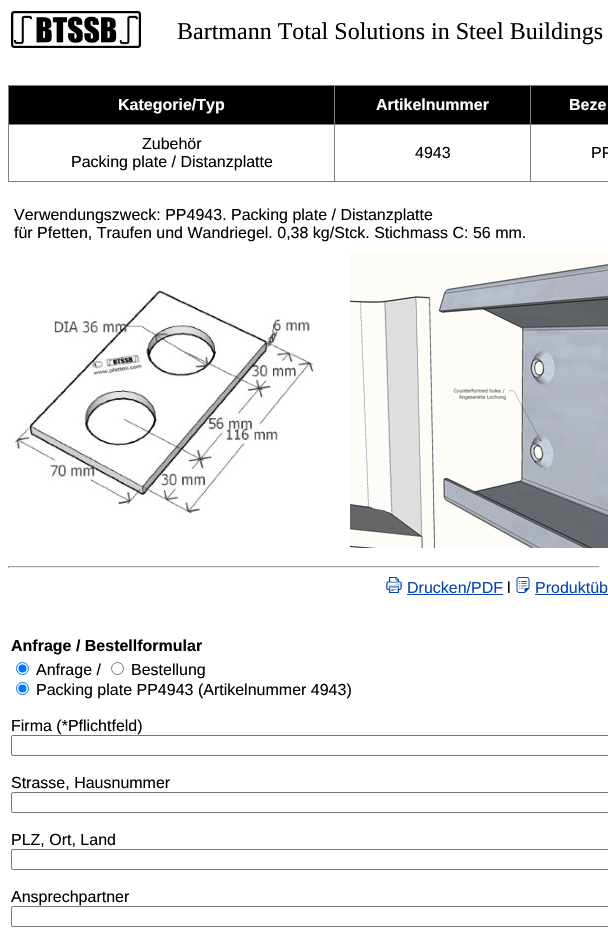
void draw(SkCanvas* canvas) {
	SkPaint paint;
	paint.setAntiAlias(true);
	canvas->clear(0xffffffff);
	canvas->drawImageRect(SkImages::DeferredFromEncodedData(SkData::MakeFromFileName("img1.png")), SkRect::MakeXYWH(11, 11, 130, 37), SkSamplingOptions());
	SkFont f1(fontMgr->matchFamilyStyle("Liberation Serif", SkFontStyle::Normal()), 24);
	f1.setSubpixel(true);
	paint.setColor(0xff000000);
	canvas->drawString("Bartmann Total Solutions in Steel Buildings", 177, 39, f1, paint);
	canvas->drawRect(SkRect::MakeXYWH(9, 86, 325, 38), paint);
	paint.setColor(0xff808080);
	canvas->drawRect(SkRect::MakeXYWH(530, 85, 78, 1), paint);
	canvas->drawRect(SkRect::MakeXYWH(530, 124, 78, 1), paint);
	canvas->drawRect(SkRect::MakeXYWH(530, 181, 78, 1), paint);
	canvas->drawRect(SkRect::MakeXYWH(530, 124, 1, 58), paint);
	canvas->drawRect(SkRect::MakeXYWH(334, 124, 197, 1), paint);
	canvas->drawRect(SkRect::MakeXYWH(530, 85, 1, 40), paint);
	canvas->drawRect(SkRect::MakeXYWH(334, 85, 197, 1), paint);
	canvas->drawRect(SkRect::MakeXYWH(334, 181, 197, 1), paint);
	canvas->drawRect(SkRect::MakeXYWH(334, 124, 1, 58), paint);
	canvas->drawRect(SkRect::MakeXYWH(8, 124, 327, 1), paint);
	canvas->drawRect(SkRect::MakeXYWH(334, 85, 1, 40), paint);
	canvas->drawRect(SkRect::MakeXYWH(8, 85, 327, 1), paint);
	canvas->drawRect(SkRect::MakeXYWH(8, 181, 327, 1), paint);
	canvas->drawRect(SkRect::MakeXYWH(8, 124, 1, 58), paint);
	canvas->drawRect(SkRect::MakeXYWH(8, 85, 1, 40), paint);
	SkFont f2(fontMgr->matchFamilyStyle("Liberation Sans", SkFontStyle::Bold()), 16);
	f2.setSubpixel(true);
	paint.setColor(0xffffffff);
	canvas->drawString("Kategorie/Typ", 118, 110, f2, paint);
	paint.setColor(0xff000000);
	canvas->drawRect(SkRect::MakeXYWH(335, 86, 195, 38), paint);
	paint.setColor(0xffffffff);
	canvas->drawString("Artikelnummer", 376, 110, f2, paint);
	paint.setColor(0xff000000);
	canvas->drawRect(SkRect::MakeXYWH(531, 86, 77, 38), paint);
	paint.setColor(0xffffffff);
	canvas->drawString("Beze", 569, 110, f2, paint);
	SkFont f3(fontMgr->matchFamilyStyle("Liberation Sans", SkFontStyle::Normal()), 16);
	f3.setSubpixel(true);
	paint.setColor(0xff000000);
	canvas->drawString("Zubehör", 142, 149, f3, paint);
	canvas->drawString("Packing plate / Distanzplatte", 71, 167, f3, paint);
	canvas->drawString("4943", 415, 158, f3, paint);
	canvas->drawString("PP", 591, 158, f3, paint);
	canvas->drawString("Verwendungszweck: PP4943. Packing plate / Distanzplatte", 14, 220, f3, paint);
	canvas->drawString("für Pfetten, Traufen und Wandriegel. 0,38 kg/Stck. Stichmass C: 56 mm.", 14, 238, f3, paint);
	canvas->drawImageRect(SkImages::DeferredFromEncodedData(SkData::MakeFromFileName("img2.png")), SkRect::MakeXYWH(14, 289, 300, 225), SkSamplingOptions());
	canvas->drawImageRect(SkImages::DeferredFromEncodedData(SkData::MakeFromFileName("img3.png")), SkRect::MakeXYWH(350, 250, 258, 298), SkSamplingOptions());
	paint.setColor(0xff9f9f9f);
	canvas->drawRect(SkRect::MakeXYWH(8, 566, 592, 1), paint);
	paint.setColor(0xffeeeeee);
	canvas->drawRect(SkRect::MakeXYWH(599, 566, 1, 2), paint);
	canvas->drawRect(SkRect::MakeXYWH(8, 567, 592, 1), paint);
	paint.setColor(0xff9f9f9f);
	canvas->drawRect(SkRect::MakeXYWH(8, 566, 1, 2), paint);
	canvas->drawImageRect(SkImages::DeferredFromEncodedData(SkData::MakeFromFileName("img4.png")), SkRect::MakeXYWH(386, 577, 16, 16), SkSamplingOptions());
	paint.setColor(0xff0645ad);
	canvas->drawString("Drucken/PDF", 407, 593, f3, paint);
	canvas->drawRect(SkRect::MakeXYWH(407, 594, 96, 1), paint);
	paint.setColor(0xff000000);
	canvas->drawString("l", 507, 593, f3, paint);
	canvas->drawImageRect(SkImages::DeferredFromEncodedData(SkData::MakeFromFileName("img5.png")), SkRect::MakeXYWH(516, 577, 14, 16), SkSamplingOptions());
	paint.setColor(0xff0645ad);
	canvas->drawString("Produktüb", 535, 593, f3, paint);
	canvas->drawRect(SkRect::MakeXYWH(535, 594, 73, 1), paint);
	paint.setColor(0xff000000);
	canvas->drawString("Anfrage / Bestellformular", 11, 651, f2, paint);
	paint.setStroke(true);
	paint.setStrokeWidth(1);
	paint.setColor(0xff0075ff);
	canvas->drawCircle(22.5, 668.5, 6, paint);
	paint.setStroke(false);
	canvas->drawCircle(22.5, 668.5, 4, paint);
	paint.setColor(0xff000000);
	canvas->drawString("Anfrage /", 36, 675, f3, paint);
	paint.setStroke(true);
	paint.setColor(0xff767676);
	canvas->drawCircle(117.5, 668.5, 6, paint);
	paint.setStroke(false);
	paint.setColor(0xff000000);
	canvas->drawString("Bestellung", 131, 675, f3, paint);
	paint.setStroke(true);
	paint.setColor(0xff0075ff);
	canvas->drawCircle(22.5, 688.5, 6, paint);
	paint.setStroke(false);
	canvas->drawCircle(22.5, 688.5, 4, paint);
	paint.setColor(0xff000000);
	canvas->drawString("Packing plate PP4943 (Artikelnummer 4943)", 36, 695, f3, paint);
	canvas->drawString("Firma (*Pflichtfeld)", 11, 731, f3, paint);
	paint.setStroke(true);
	paint.setColor(0xff767676);
	canvas->drawRoundRect(SkRect::MakeXYWH(11.5, 735.5, 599, 20), 1.5, 1.5, paint);
	paint.setStroke(false);
	paint.setColor(0xff000000);
	canvas->drawString("Strasse, Hausnummer", 11, 788, f3, paint);
	paint.setStroke(true);
	paint.setColor(0xff767676);
	canvas->drawRoundRect(SkRect::MakeXYWH(11.5, 792.5, 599, 20), 1.5, 1.5, paint);
	paint.setStroke(false);
	paint.setColor(0xff000000);
	canvas->drawString("PLZ, Ort, Land", 11, 845, f3, paint);
	paint.setStroke(true);
	paint.setColor(0xff767676);
	canvas->drawRoundRect(SkRect::MakeXYWH(11.5, 849.5, 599, 20), 1.5, 1.5, paint);
	paint.setStroke(false);
	paint.setColor(0xff000000);
	canvas->drawString("Ansprechpartner", 11, 902, f3, paint);
	paint.setStroke(true);
	paint.setColor(0xff767676);
	canvas->drawRoundRect(SkRect::MakeXYWH(11.5, 906.5, 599, 20), 1.5, 1.5, paint);
}
